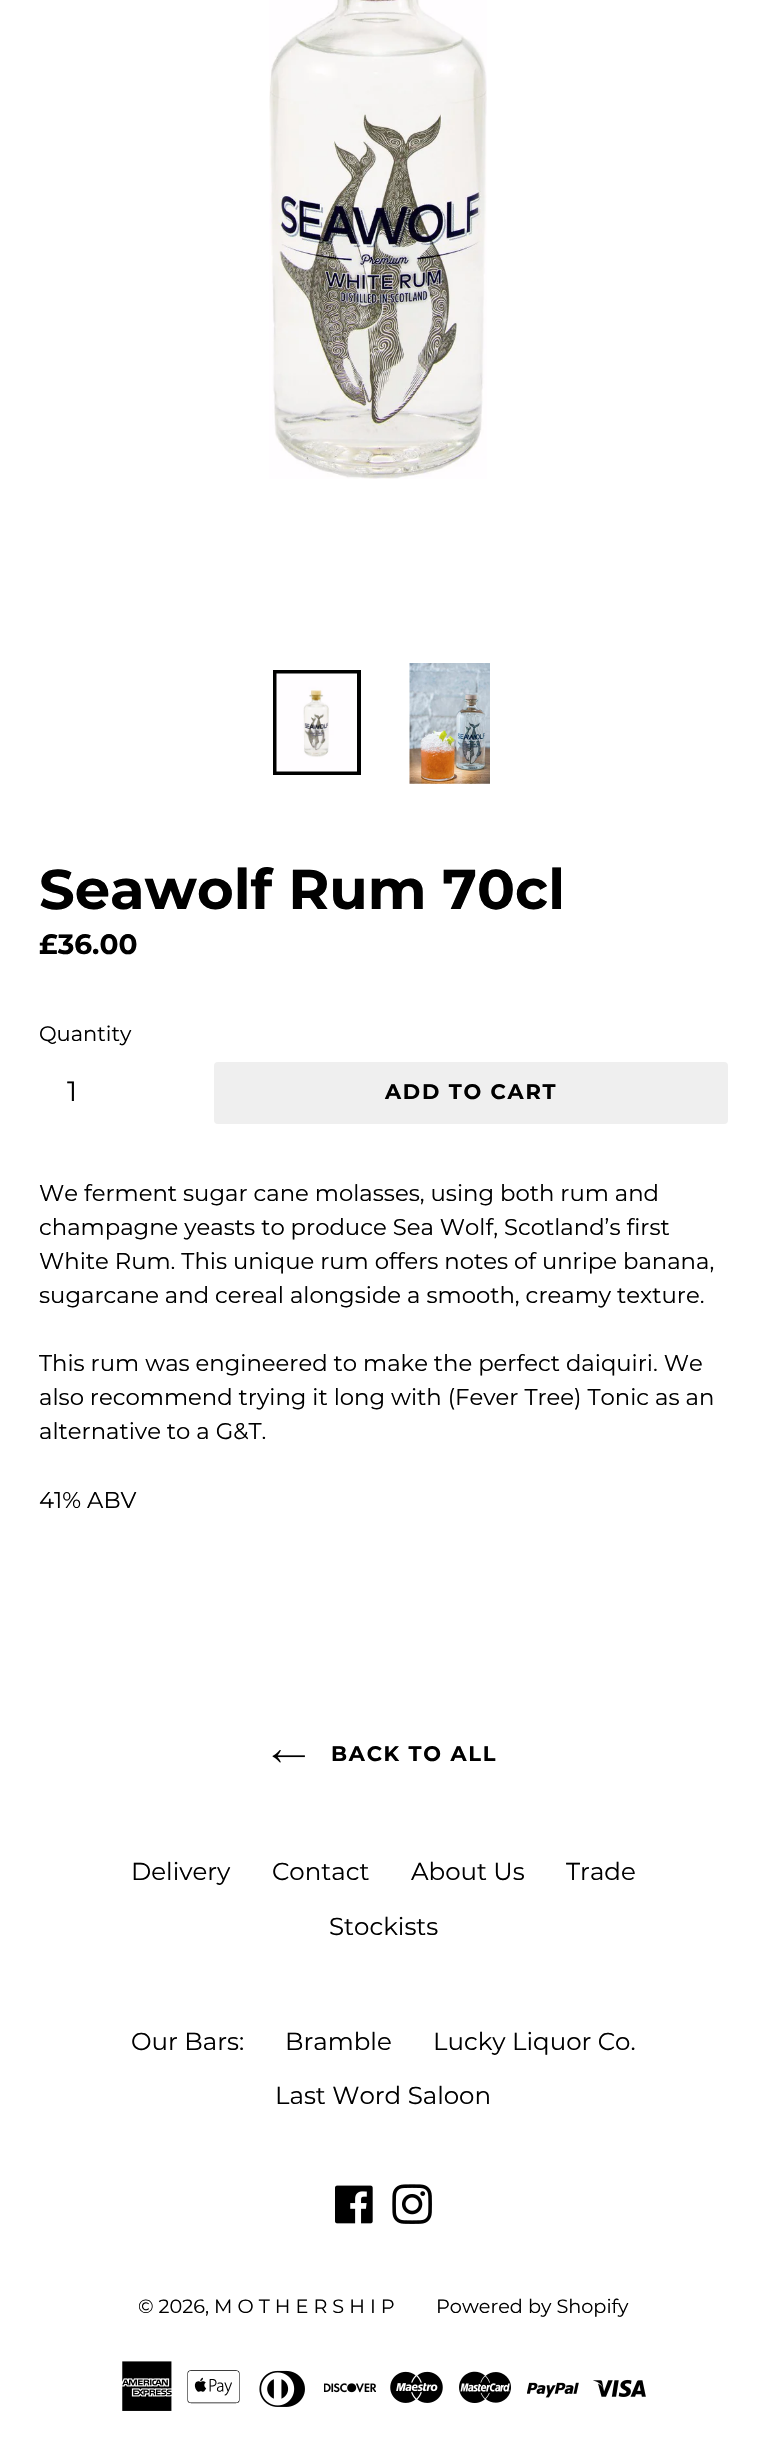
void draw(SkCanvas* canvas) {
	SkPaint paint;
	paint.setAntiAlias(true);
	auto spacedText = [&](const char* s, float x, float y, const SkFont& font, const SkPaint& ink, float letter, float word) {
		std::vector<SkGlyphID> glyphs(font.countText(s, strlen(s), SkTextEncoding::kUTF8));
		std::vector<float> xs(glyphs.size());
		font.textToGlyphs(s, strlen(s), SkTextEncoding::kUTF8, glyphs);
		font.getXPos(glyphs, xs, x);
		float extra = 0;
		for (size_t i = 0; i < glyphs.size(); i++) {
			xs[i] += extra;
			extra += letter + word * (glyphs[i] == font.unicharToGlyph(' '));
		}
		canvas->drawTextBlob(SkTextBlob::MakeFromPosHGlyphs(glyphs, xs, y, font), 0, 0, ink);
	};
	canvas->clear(0xffffffff);
	canvas->drawImageRect(SkImages::DeferredFromEncodedData(SkData::MakeFromFileName("img1.png")), SkRect::MakeXYWH(269, 0, 218, 479), SkSamplingOptions());
	paint.setStroke(true);
	paint.setStrokeWidth(4);
	paint.setColor(0xff000000);
	canvas->drawRect(SkRect::MakeXYWH(275, 672, 84, 101), paint);
	canvas->drawImageRect(SkImages::DeferredFromEncodedData(SkData::MakeFromFileName("img2.png")), SkRect::MakeXYWH(276, 673, 81, 99), SkSamplingOptions());
	canvas->drawImageRect(SkImages::DeferredFromEncodedData(SkData::MakeFromFileName("img3.png")), SkRect::MakeXYWH(409, 663, 81, 121), SkSamplingOptions());
	SkFont f1(fontMgr->matchFamilyStyle("Montserrat", SkFontStyle::Bold()), 56);
	f1.setSubpixel(true);
	paint.setStroke(false);
	canvas->drawString("Seawolf Rum 70cl", 39, 909, f1, paint);
	SkFont f2(fontMgr->matchFamilyStyle("Montserrat", SkFontStyle::Bold()), 28);
	f2.setSubpixel(true);
	canvas->drawString("£36.00", 39, 954, f2, paint);
	SkFont f3(fontMgr->matchFamilyStyle("Montserrat", SkFontStyle::Normal()), 21);
	f3.setSubpixel(true);
	canvas->drawString("Quantity", 39, 1041, f3, paint);
	SkFont f4(fontMgr->matchFamilyStyle("Montserrat", SkFontStyle::Normal()), 28);
	f4.setSubpixel(true);
	canvas->drawString("1", 67, 1101, f4, paint);
	paint.setColor(0xffefefef);
	canvas->drawRoundRect(SkRect::MakeXYWH(214, 1062, 514, 62), 4, 4, paint);
	SkFont f5(fontMgr->matchFamilyStyle("Montserrat", SkFontStyle::Bold()), 21);
	f5.setSubpixel(true);
	paint.setColor(0xff000000);
	spacedText("ADD TO CART", 385, 1099, f5, paint, 1.75, 0);
	SkFont f6(fontMgr->matchFamilyStyle("Montserrat", SkFontStyle::Normal()), 22.75);
	f6.setSubpixel(true);
	canvas->drawString("We ferment sugar cane molasses, using both rum and", 39, 1201, f6, paint);
	canvas->drawString("champagne yeasts to produce Sea Wolf, Scotland’s first", 39, 1235, f6, paint);
	canvas->drawString("White Rum. This unique rum offers notes of unripe banana,", 39, 1269, f6, paint);
	canvas->drawString("sugarcane and cereal alongside a smooth, creamy texture.", 39, 1303, f6, paint);
	canvas->drawString("This rum was engineered to make the perfect daiquiri. We", 39, 1371, f6, paint);
	canvas->drawString("also recommend trying it long with (Fever Tree) Tonic as an", 39, 1405, f6, paint);
	canvas->drawString("alternative to a G&T.", 39, 1439, f6, paint);
	canvas->drawString("41% ABV", 39, 1508, f6, paint);
	canvas->drawImageRect(SkImages::DeferredFromEncodedData(SkData::MakeFromFileName("img4.png")), SkRect::MakeXYWH(272, 1750, 33, 13), SkSamplingOptions());
	spacedText("BACK TO ALL", 331, 1761, f5, paint, 1.75, 0);
	SkFont f7(fontMgr->matchFamilyStyle("Montserrat", SkFontStyle::Normal()), 24.5);
	f7.setSubpixel(true);
	canvas->drawString("Delivery", 131, 1880, f7, paint);
	canvas->drawString("Contact", 272, 1880, f7, paint);
	canvas->drawString("About Us", 411, 1880, f7, paint);
	canvas->drawString("Trade", 566, 1880, f7, paint);
	canvas->drawString("Stockists", 329, 1935, f7, paint);
	canvas->drawString("Our Bars:", 131, 2050, f7, paint);
	canvas->drawString("Bramble", 285, 2050, f7, paint);
	canvas->drawString("Lucky Liquor Co.", 433, 2050, f7, paint);
	canvas->drawString("Last Word Saloon", 275, 2104, f7, paint);
	canvas->drawImageRect(SkImages::DeferredFromEncodedData(SkData::MakeFromFileName("img5.png")), SkRect::MakeXYWH(335, 2185, 38, 39), SkSamplingOptions());
	canvas->drawImageRect(SkImages::DeferredFromEncodedData(SkData::MakeFromFileName("img6.png")), SkRect::MakeXYWH(392, 2184, 40, 40), SkSamplingOptions());
	SkFont f8(fontMgr->matchFamilyStyle("Montserrat", SkFontStyle::Normal()), 19.25);
	f8.setSubpixel(true);
	canvas->drawString("© 2026, M O T H E R S H I P", 138, 2313, f8, paint);
	canvas->drawString("Powered by Shopify", 436, 2313, f8, paint);
	canvas->drawImageRect(SkImages::DeferredFromEncodedData(SkData::MakeFromFileName("img7.png")), SkRect::MakeXYWH(122, 2361, 50, 50), SkSamplingOptions());
	canvas->drawImageRect(SkImages::DeferredFromEncodedData(SkData::MakeFromFileName("img8.png")), SkRect::MakeXYWH(187, 2370, 53, 34), SkSamplingOptions());
	canvas->drawImageRect(SkImages::DeferredFromEncodedData(SkData::MakeFromFileName("img9.png")), SkRect::MakeXYWH(259, 2370, 46, 37), SkSamplingOptions());
	canvas->drawImageRect(SkImages::DeferredFromEncodedData(SkData::MakeFromFileName("img10.png")), SkRect::MakeXYWH(324, 2383, 52, 10), SkSamplingOptions());
	canvas->drawImageRect(SkImages::DeferredFromEncodedData(SkData::MakeFromFileName("img11.png")), SkRect::MakeXYWH(390, 2371, 53, 32), SkSamplingOptions());
	canvas->drawImageRect(SkImages::DeferredFromEncodedData(SkData::MakeFromFileName("img12.png")), SkRect::MakeXYWH(459, 2371, 52, 32), SkSamplingOptions());
	canvas->drawImageRect(SkImages::DeferredFromEncodedData(SkData::MakeFromFileName("img13.png")), SkRect::MakeXYWH(527, 2382, 52, 16), SkSamplingOptions());
	canvas->drawImageRect(SkImages::DeferredFromEncodedData(SkData::MakeFromFileName("img14.png")), SkRect::MakeXYWH(593, 2379, 53, 18), SkSamplingOptions());
}
